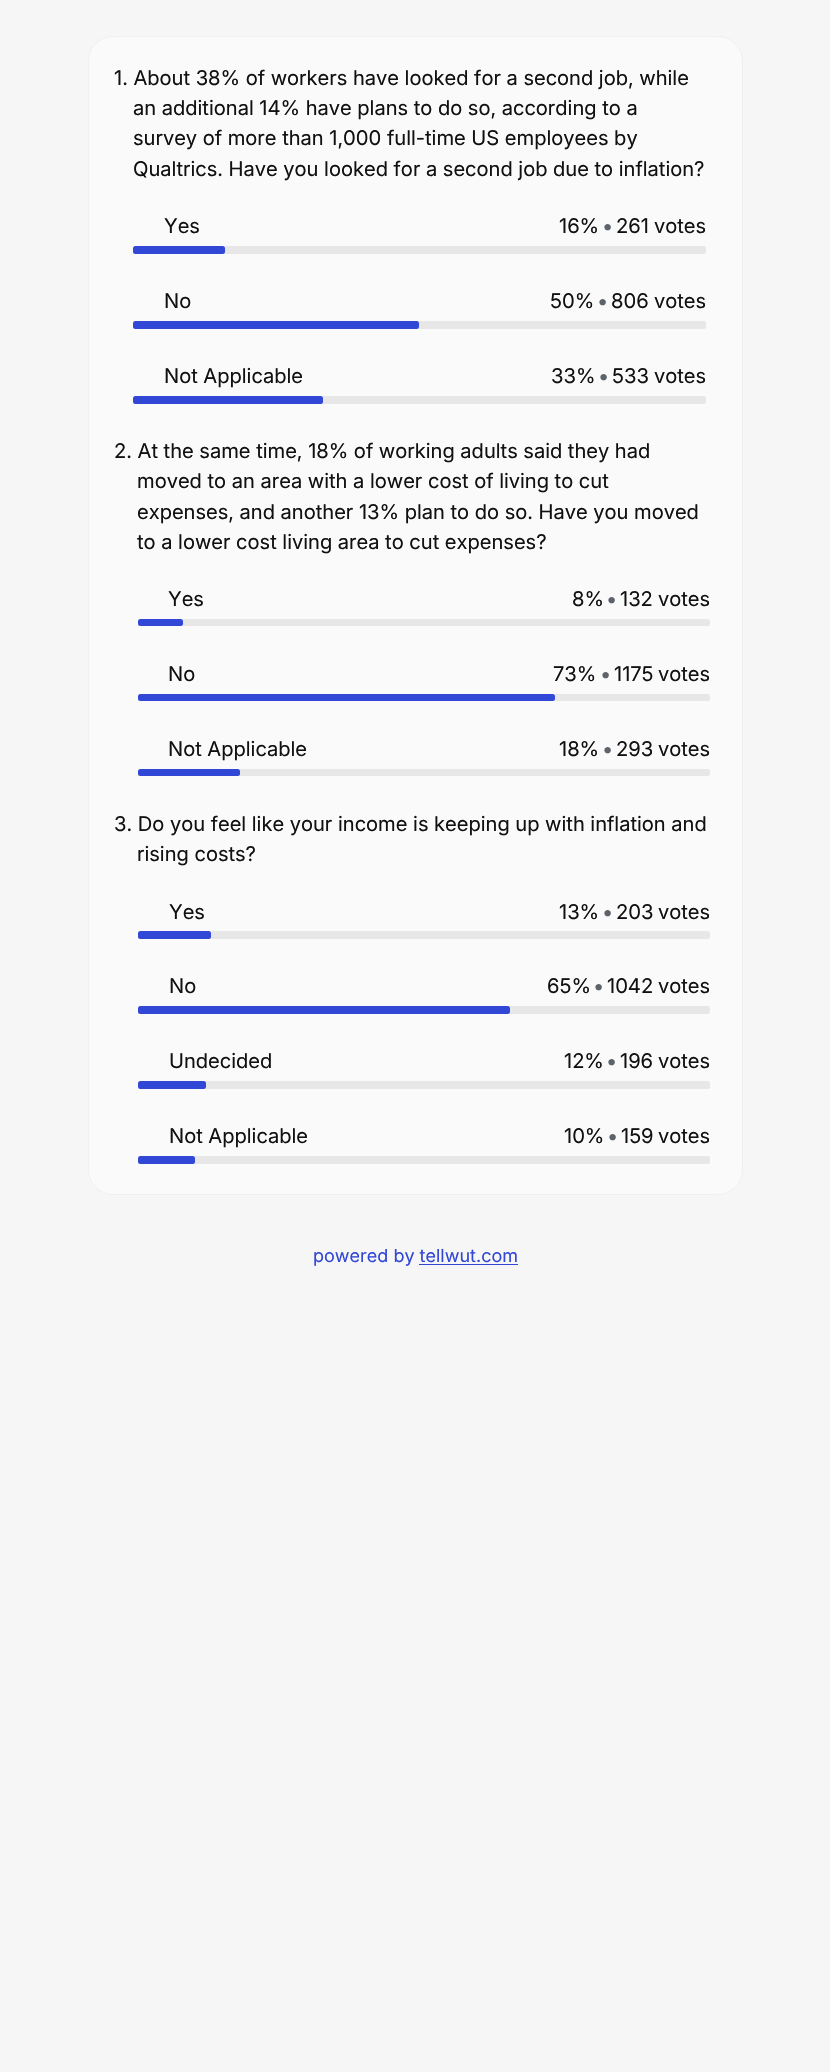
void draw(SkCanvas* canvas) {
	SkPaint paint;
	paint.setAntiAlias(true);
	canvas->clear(0xfff6f6f6);
	paint.setColor(0xfffafafa);
	canvas->drawRoundRect(SkRect::MakeXYWH(88.5, 36.5, 654, 1158), 24.5, 24.5, paint);
	paint.setStroke(true);
	paint.setStrokeWidth(1);
	paint.setColor(0xfff0f0f0);
	canvas->drawRoundRect(SkRect::MakeXYWH(88.5, 36.5, 654, 1158), 24.5, 24.5, paint);
	SkFont f1(fontMgr->matchFamilyStyle("Inter", SkFontStyle::Normal()), 20.25);
	f1.setSubpixel(true);
	paint.setStroke(false);
	paint.setColor(0xff111111);
	canvas->drawString("1. About 38% of workers have looked for a second job, while", 114, 85, f1, paint);
	canvas->drawString("an additional 14% have plans to do so, according to a", 133, 115, f1, paint);
	canvas->drawString("survey of more than 1,000 full-time US employees by", 133, 145, f1, paint);
	canvas->drawString("Qualtrics. Have you looked for a second job due to inflation?", 133, 176, f1, paint);
	canvas->drawString("Yes", 164, 233, f1, paint);
	canvas->drawString("16%", 559, 233, f1, paint);
	paint.setColor(0xff5d636a);
	canvas->drawString("•", 602, 233, f1, paint);
	paint.setColor(0xff111111);
	canvas->drawString("261", 616, 233, f1, paint);
	canvas->drawString("votes", 654, 233, f1, paint);
	paint.setColor(0xfff0f0f0);
	canvas->drawRoundRect(SkRect::MakeXYWH(133, 246, 573, 8), 2.5, 2.5, paint);
	paint.setColor(0x147d7d7d);
	canvas->drawRoundRect(SkRect::MakeXYWH(133, 246, 573, 8), 2.5, 2.5, paint);
	paint.setColor(0xff3147d5);
	canvas->drawRoundRect(SkRect::MakeXYWH(133, 246, 92, 8), 2.5, 2.5, paint);
	paint.setColor(0xff111111);
	canvas->drawString("No", 164, 308, f1, paint);
	canvas->drawString("50%", 550, 308, f1, paint);
	paint.setColor(0xff5d636a);
	canvas->drawString("•", 597, 308, f1, paint);
	paint.setColor(0xff111111);
	canvas->drawString("806", 611, 308, f1, paint);
	canvas->drawString("votes", 654, 308, f1, paint);
	paint.setColor(0xfff0f0f0);
	canvas->drawRoundRect(SkRect::MakeXYWH(133, 321, 573, 8), 2.5, 2.5, paint);
	paint.setColor(0x147d7d7d);
	canvas->drawRoundRect(SkRect::MakeXYWH(133, 321, 573, 8), 2.5, 2.5, paint);
	paint.setColor(0xff3147d5);
	canvas->drawRoundRect(SkRect::MakeXYWH(133, 321, 286, 8), 2.5, 2.5, paint);
	paint.setColor(0xff111111);
	canvas->drawString("Not Applicable", 164, 383, f1, paint);
	canvas->drawString("33%", 551, 383, f1, paint);
	paint.setColor(0xff5d636a);
	canvas->drawString("•", 598, 383, f1, paint);
	paint.setColor(0xff111111);
	canvas->drawString("533", 612, 383, f1, paint);
	canvas->drawString("votes", 654, 383, f1, paint);
	paint.setColor(0xfff0f0f0);
	canvas->drawRoundRect(SkRect::MakeXYWH(133, 396, 573, 8), 2.5, 2.5, paint);
	paint.setColor(0x147d7d7d);
	canvas->drawRoundRect(SkRect::MakeXYWH(133, 396, 573, 8), 2.5, 2.5, paint);
	paint.setColor(0xff3147d5);
	canvas->drawRoundRect(SkRect::MakeXYWH(133, 396, 190, 8), 2.5, 2.5, paint);
	paint.setColor(0xff111111);
	canvas->drawString("2. At the same time, 18% of working adults said they had", 114, 458, f1, paint);
	canvas->drawString("moved to an area with a lower cost of living to cut", 137, 488, f1, paint);
	canvas->drawString("expenses, and another 13% plan to do so. Have you moved", 137, 519, f1, paint);
	canvas->drawString("to a lower cost living area to cut expenses?", 137, 549, f1, paint);
	canvas->drawString("Yes", 168, 606, f1, paint);
	canvas->drawString("8%", 572, 606, f1, paint);
	paint.setColor(0xff5d636a);
	canvas->drawString("•", 606, 606, f1, paint);
	paint.setColor(0xff111111);
	canvas->drawString("132", 620, 606, f1, paint);
	canvas->drawString("votes", 658, 606, f1, paint);
	paint.setColor(0xfff0f0f0);
	canvas->drawRoundRect(SkRect::MakeXYWH(138, 619, 572, 7), 2.5, 2.5, paint);
	paint.setColor(0x147d7d7d);
	canvas->drawRoundRect(SkRect::MakeXYWH(138, 619, 572, 7), 2.5, 2.5, paint);
	paint.setColor(0xff3147d5);
	canvas->drawRoundRect(SkRect::MakeXYWH(138, 619, 45, 7), 2.5, 2.5, paint);
	paint.setColor(0xff111111);
	canvas->drawString("No", 168, 681, f1, paint);
	canvas->drawString("73%", 553, 681, f1, paint);
	paint.setColor(0xff5d636a);
	canvas->drawString("•", 600, 681, f1, paint);
	paint.setColor(0xff111111);
	canvas->drawString("1175", 614, 681, f1, paint);
	canvas->drawString("votes", 658, 681, f1, paint);
	paint.setColor(0xfff0f0f0);
	canvas->drawRoundRect(SkRect::MakeXYWH(138, 694, 572, 7), 2.5, 2.5, paint);
	paint.setColor(0x147d7d7d);
	canvas->drawRoundRect(SkRect::MakeXYWH(138, 694, 572, 7), 2.5, 2.5, paint);
	paint.setColor(0xff3147d5);
	canvas->drawRoundRect(SkRect::MakeXYWH(138, 694, 417, 7), 2.5, 2.5, paint);
	paint.setColor(0xff111111);
	canvas->drawString("Not Applicable", 168, 756, f1, paint);
	canvas->drawString("18%", 559, 756, f1, paint);
	paint.setColor(0xff5d636a);
	canvas->drawString("•", 602, 756, f1, paint);
	paint.setColor(0xff111111);
	canvas->drawString("293", 616, 756, f1, paint);
	canvas->drawString("votes", 658, 756, f1, paint);
	paint.setColor(0xfff0f0f0);
	canvas->drawRoundRect(SkRect::MakeXYWH(138, 769, 572, 7), 2.5, 2.5, paint);
	paint.setColor(0x147d7d7d);
	canvas->drawRoundRect(SkRect::MakeXYWH(138, 769, 572, 7), 2.5, 2.5, paint);
	paint.setColor(0xff3147d5);
	canvas->drawRoundRect(SkRect::MakeXYWH(138, 769, 102, 7), 2.5, 2.5, paint);
	paint.setColor(0xff111111);
	canvas->drawString("3. Do you feel like your income is keeping up with inflation and", 114, 831, f1, paint);
	canvas->drawString("rising costs?", 137, 861, f1, paint);
	canvas->drawString("Yes", 169, 919, f1, paint);
	canvas->drawString("13%", 559, 919, f1, paint);
	paint.setColor(0xff5d636a);
	canvas->drawString("•", 602, 919, f1, paint);
	paint.setColor(0xff111111);
	canvas->drawString("203", 616, 919, f1, paint);
	canvas->drawString("votes", 658, 919, f1, paint);
	paint.setColor(0xfff0f0f0);
	canvas->drawRoundRect(SkRect::MakeXYWH(138, 931, 572, 8), 2.5, 2.5, paint);
	paint.setColor(0x147d7d7d);
	canvas->drawRoundRect(SkRect::MakeXYWH(138, 931, 572, 8), 2.5, 2.5, paint);
	paint.setColor(0xff3147d5);
	canvas->drawRoundRect(SkRect::MakeXYWH(138, 931, 73, 8), 2.5, 2.5, paint);
	paint.setColor(0xff111111);
	canvas->drawString("No", 169, 993, f1, paint);
	canvas->drawString("65%", 547, 993, f1, paint);
	paint.setColor(0xff5d636a);
	canvas->drawString("•", 593, 993, f1, paint);
	paint.setColor(0xff111111);
	canvas->drawString("1042", 607, 993, f1, paint);
	canvas->drawString("votes", 658, 993, f1, paint);
	paint.setColor(0xfff0f0f0);
	canvas->drawRoundRect(SkRect::MakeXYWH(138, 1006, 572, 8), 2.5, 2.5, paint);
	paint.setColor(0x147d7d7d);
	canvas->drawRoundRect(SkRect::MakeXYWH(138, 1006, 572, 8), 2.5, 2.5, paint);
	paint.setColor(0xff3147d5);
	canvas->drawRoundRect(SkRect::MakeXYWH(138, 1006, 372, 8), 2.5, 2.5, paint);
	paint.setColor(0xff111111);
	canvas->drawString("Undecided", 169, 1068, f1, paint);
	canvas->drawString("12%", 564, 1068, f1, paint);
	paint.setColor(0xff5d636a);
	canvas->drawString("•", 606, 1068, f1, paint);
	paint.setColor(0xff111111);
	canvas->drawString("196", 620, 1068, f1, paint);
	canvas->drawString("votes", 658, 1068, f1, paint);
	paint.setColor(0xfff0f0f0);
	canvas->drawRoundRect(SkRect::MakeXYWH(138, 1081, 572, 8), 2.5, 2.5, paint);
	paint.setColor(0x147d7d7d);
	canvas->drawRoundRect(SkRect::MakeXYWH(138, 1081, 572, 8), 2.5, 2.5, paint);
	paint.setColor(0xff3147d5);
	canvas->drawRoundRect(SkRect::MakeXYWH(138, 1081, 68, 8), 2.5, 2.5, paint);
	paint.setColor(0xff111111);
	canvas->drawString("Not Applicable", 169, 1143, f1, paint);
	canvas->drawString("10%", 564, 1143, f1, paint);
	paint.setColor(0xff5d636a);
	canvas->drawString("•", 607, 1143, f1, paint);
	paint.setColor(0xff111111);
	canvas->drawString("159", 621, 1143, f1, paint);
	canvas->drawString("votes", 658, 1143, f1, paint);
	paint.setColor(0xfff0f0f0);
	canvas->drawRoundRect(SkRect::MakeXYWH(138, 1156, 572, 8), 2.5, 2.5, paint);
	paint.setColor(0x147d7d7d);
	canvas->drawRoundRect(SkRect::MakeXYWH(138, 1156, 572, 8), 2.5, 2.5, paint);
	paint.setColor(0xff3147d5);
	canvas->drawRoundRect(SkRect::MakeXYWH(138, 1156, 57, 8), 2.5, 2.5, paint);
	SkFont f2(fontMgr->matchFamilyStyle("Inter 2", SkFontStyle::Normal()), 18);
	f2.setSubpixel(true);
	canvas->drawString("powered by tellwut.com", 313, 1262, f2, paint);
	canvas->drawRect(SkRect::MakeXYWH(419, 1264, 99, 1), paint);
}
